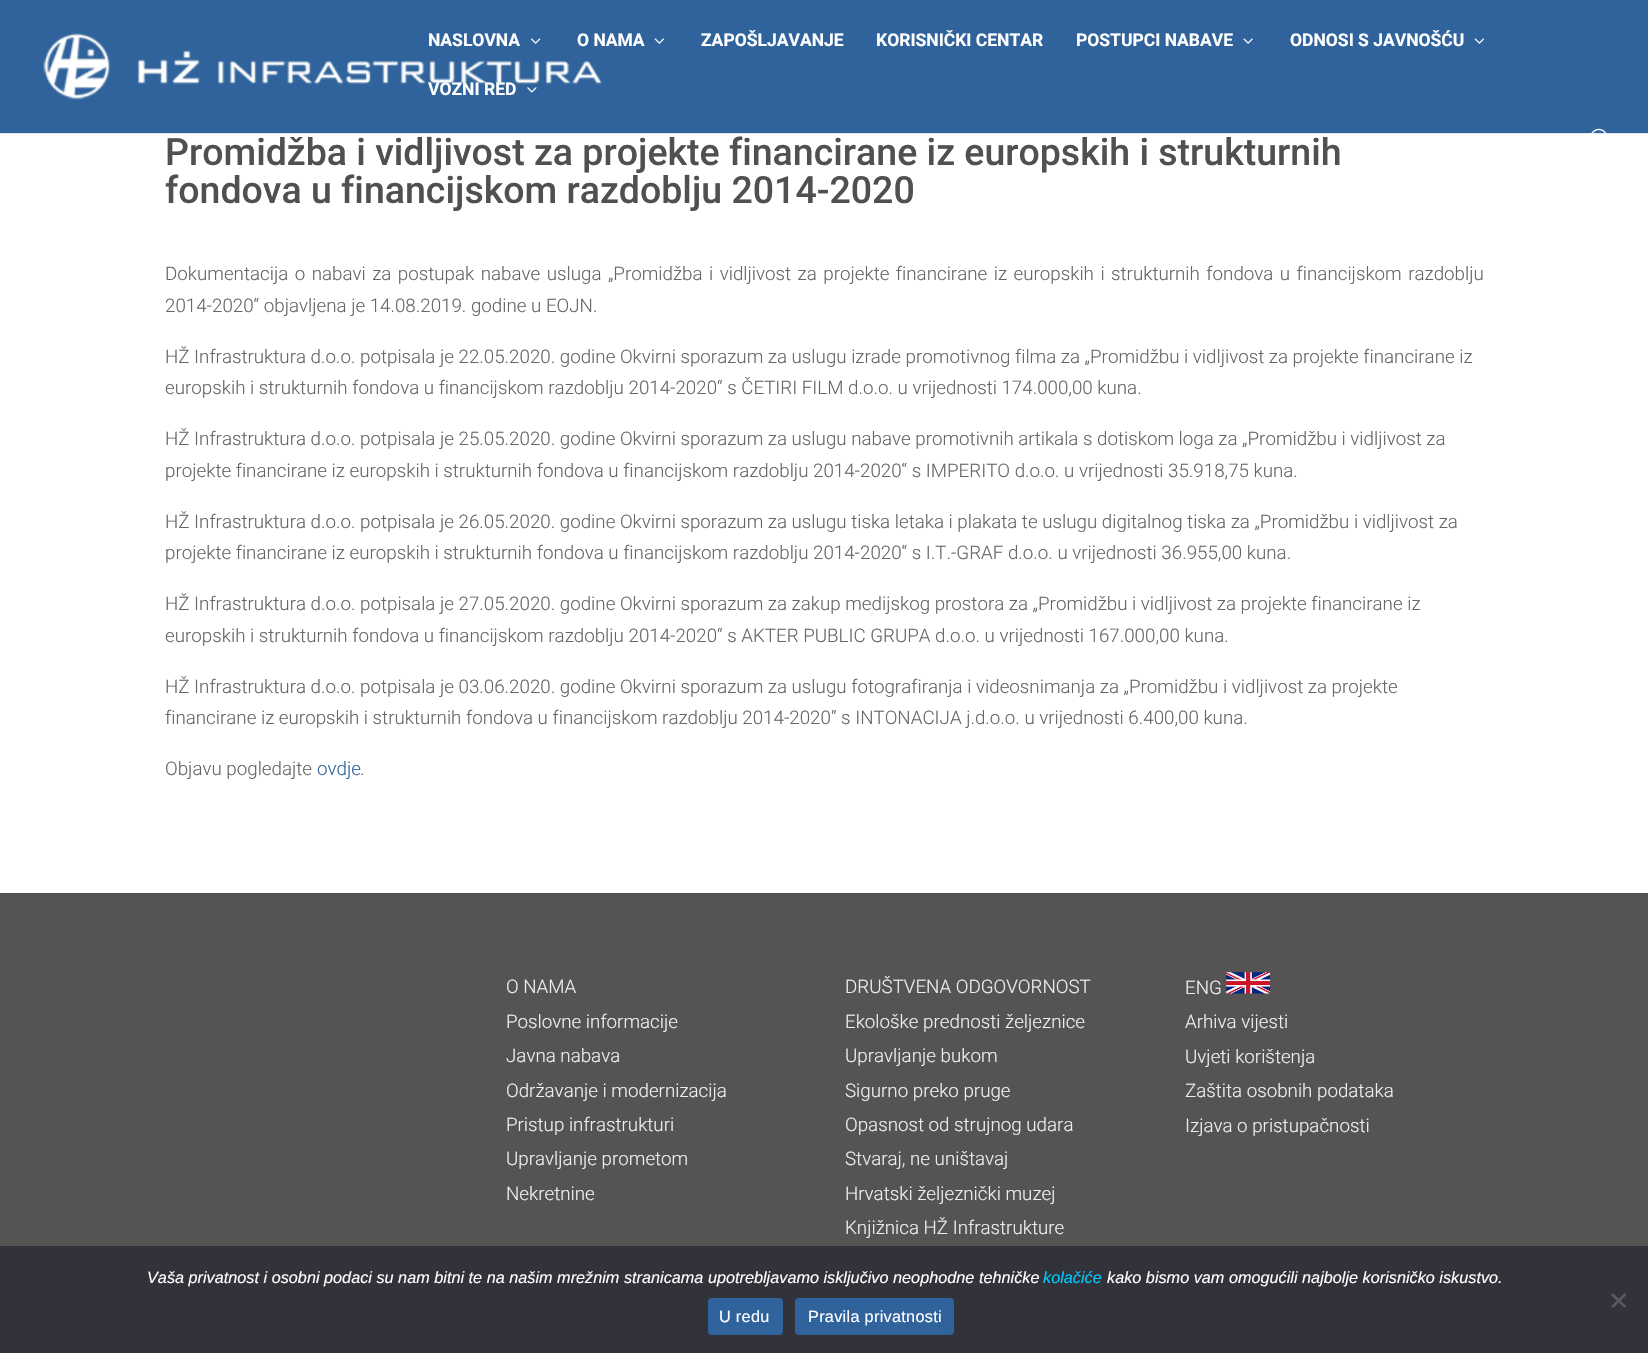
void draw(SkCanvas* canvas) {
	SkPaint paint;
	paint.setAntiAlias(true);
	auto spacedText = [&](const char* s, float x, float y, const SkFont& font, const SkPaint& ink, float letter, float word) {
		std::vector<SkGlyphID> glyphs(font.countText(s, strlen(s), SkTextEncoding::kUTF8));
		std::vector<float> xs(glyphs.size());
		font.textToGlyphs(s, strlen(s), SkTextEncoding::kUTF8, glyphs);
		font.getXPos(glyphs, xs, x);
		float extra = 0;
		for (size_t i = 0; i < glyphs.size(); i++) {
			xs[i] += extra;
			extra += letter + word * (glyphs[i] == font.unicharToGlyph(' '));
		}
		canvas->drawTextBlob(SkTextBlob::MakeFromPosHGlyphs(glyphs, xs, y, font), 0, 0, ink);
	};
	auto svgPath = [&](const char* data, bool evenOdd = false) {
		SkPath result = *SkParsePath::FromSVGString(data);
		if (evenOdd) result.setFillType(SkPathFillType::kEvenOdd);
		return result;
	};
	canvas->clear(0xffffffff);
	paint.setColor(0xffe6e6e6);
	canvas->drawPath(svgPath("M0 132V134H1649V1V132Z"), paint);
	paint.setColor(0xff30639b);
	canvas->drawRect(SkRect::MakeXYWH(0, 0, 1648, 133), paint);
	canvas->drawImageRect(SkImages::DeferredFromEncodedData(SkData::MakeFromFileName("img1.png")), SkRect::MakeXYWH(43, 33, 559, 67), SkSamplingOptions());
	SkFont f1(fontMgr->matchFamilyStyle("Roboto", SkFontStyle::Bold()), 17.5);
	f1.setSubpixel(true);
	paint.setColor(0xffffffff);
	canvas->drawString("NASLOVNA", 428, 46, f1, paint);
	canvas->drawImageRect(SkImages::DeferredFromEncodedData(SkData::MakeFromFileName("img2.png")), SkRect::MakeXYWH(531, 38, 10, 6), SkSamplingOptions());
	canvas->drawString("O NAMA", 577, 46, f1, paint);
	canvas->drawImageRect(SkImages::DeferredFromEncodedData(SkData::MakeFromFileName("img3.png")), SkRect::MakeXYWH(654, 38, 10, 6), SkSamplingOptions());
	canvas->drawString("ZAPOŠLJAVANJE", 701, 46, f1, paint);
	canvas->drawString("KORISNIČKI CENTAR", 876, 46, f1, paint);
	canvas->drawString("POSTUPCI NABAVE", 1076, 46, f1, paint);
	canvas->drawImageRect(SkImages::DeferredFromEncodedData(SkData::MakeFromFileName("img4.png")), SkRect::MakeXYWH(1243, 38, 10, 6), SkSamplingOptions());
	canvas->drawString("ODNOSI S JAVNOŠĆU", 1290, 46, f1, paint);
	canvas->drawImageRect(SkImages::DeferredFromEncodedData(SkData::MakeFromFileName("img3.png")), SkRect::MakeXYWH(1474, 38, 10, 6), SkSamplingOptions());
	canvas->drawString("VOZNI RED", 428, 95, f1, paint);
	canvas->drawImageRect(SkImages::DeferredFromEncodedData(SkData::MakeFromFileName("img5.png")), SkRect::MakeXYWH(527, 87, 10, 6), SkSamplingOptions());
	canvas->drawImageRect(SkImages::DeferredFromEncodedData(SkData::MakeFromFileName("img6.png")), SkRect::MakeXYWH(1591, 128, 16, 6), SkSamplingOptions());
	SkFont f2(fontMgr->matchFamilyStyle("Roboto", SkFontStyle(500, SkFontStyle::kNormal_Width, SkFontStyle::kUpright_Slant)), 37.5);
	f2.setSubpixel(true);
	paint.setColor(0xff505050);
	canvas->drawString("Promidžba i vidljivost za projekte financirane iz europskih i strukturnih", 165, 165, f2, paint);
	canvas->drawString("fondova u financijskom razdoblju 2014-2020", 165, 203, f2, paint);
	SkFont f3(fontMgr->matchFamilyStyle("Roboto", SkFontStyle(300, SkFontStyle::kNormal_Width, SkFontStyle::kUpright_Slant)), 18.75);
	f3.setSubpixel(true);
	paint.setColor(0xff666666);
	spacedText("Dokumentacija o nabavi za postupak nabave usluga „Promidžba i vidljivost za projekte financirane iz europskih i strukturnih fondova u financijskom razdoblju", 165, 280, f3, paint, 0, 1.9);
	canvas->drawString("2014-2020“ objavljena je 14.08.2019. godine u EOJN.", 165, 312, f3, paint);
	canvas->drawString("HŽ Infrastruktura d.o.o. potpisala je 22.05.2020. godine Okvirni sporazum za uslugu izrade promotivnog filma za „Promidžbu i vidljivost za projekte financirane iz", 165, 363, f3, paint);
	canvas->drawString("europskih i strukturnih fondova u financijskom razdoblju 2014-2020“ s ČETIRI FILM d.o.o. u vrijednosti 174.000,00 kuna.", 165, 394, f3, paint);
	canvas->drawString("HŽ Infrastruktura d.o.o. potpisala je 25.05.2020. godine Okvirni sporazum za uslugu nabave promotivnih artikala s dotiskom loga za „Promidžbu i vidljivost za", 165, 445, f3, paint);
	canvas->drawString("projekte financirane iz europskih i strukturnih fondova u financijskom razdoblju 2014-2020“ s IMPERITO d.o.o. u vrijednosti 35.918,75 kuna.", 165, 477, f3, paint);
	canvas->drawString("HŽ Infrastruktura d.o.o. potpisala je 26.05.2020. godine Okvirni sporazum za uslugu tiska letaka i plakata te uslugu digitalnog tiska za „Promidžbu i vidljivost za", 165, 528, f3, paint);
	canvas->drawString("projekte financirane iz europskih i strukturnih fondova u financijskom razdoblju 2014-2020“ s I.T.-GRAF d.o.o. u vrijednosti 36.955,00 kuna.", 165, 559, f3, paint);
	canvas->drawString("HŽ Infrastruktura d.o.o. potpisala je 27.05.2020. godine Okvirni sporazum za zakup medijskog prostora za „Promidžbu i vidljivost za projekte financirane iz", 165, 610, f3, paint);
	canvas->drawString("europskih i strukturnih fondova u financijskom razdoblju 2014-2020“ s AKTER PUBLIC GRUPA d.o.o. u vrijednosti 167.000,00 kuna.", 165, 642, f3, paint);
	canvas->drawString("HŽ Infrastruktura d.o.o. potpisala je 03.06.2020. godine Okvirni sporazum za uslugu fotografiranja i videosnimanja za „Promidžbu i vidljivost za projekte", 165, 693, f3, paint);
	canvas->drawString("financirane iz europskih i strukturnih fondova u financijskom razdoblju 2014-2020“ s INTONACIJA j.d.o.o. u vrijednosti 6.400,00 kuna.", 165, 724, f3, paint);
	canvas->drawString("Objavu pogledajte", 165, 775, f3, paint);
	paint.setColor(0xff30639b);
	canvas->drawString("ovdje", 317, 775, f3, paint);
	paint.setColor(0xff666666);
	canvas->drawString(".", 360, 775, f3, paint);
	paint.setColor(0xff545454);
	canvas->drawRect(SkRect::MakeXYWH(0, 893, 1648, 353), paint);
	paint.setColor(0xffeeeeee);
	canvas->drawString("O NAMA", 506, 993, f3, paint);
	canvas->drawString("Poslovne informacije", 506, 1028, f3, paint);
	canvas->drawString("Javna nabava", 506, 1062, f3, paint);
	canvas->drawString("Održavanje i modernizacija", 506, 1097, f3, paint);
	canvas->drawString("Pristup infrastrukturi", 506, 1131, f3, paint);
	canvas->drawString("Upravljanje prometom", 506, 1165, f3, paint);
	canvas->drawString("Nekretnine", 506, 1200, f3, paint);
	canvas->drawString("DRUŠTVENA ODGOVORNOST", 845, 993, f3, paint);
	canvas->drawString("Ekološke prednosti željeznice", 845, 1028, f3, paint);
	canvas->drawString("Upravljanje bukom", 845, 1062, f3, paint);
	canvas->drawString("Sigurno preko pruge", 845, 1097, f3, paint);
	canvas->drawString("Opasnost od strujnog udara", 845, 1131, f3, paint);
	canvas->drawString("Stvaraj, ne uništavaj", 845, 1165, f3, paint);
	canvas->drawString("Hrvatski željeznički muzej", 845, 1200, f3, paint);
	canvas->drawString("Knjižnica HŽ Infrastrukture", 845, 1234, f3, paint);
	canvas->drawString("ENG", 1185, 994, f3, paint);
	canvas->drawImageRect(SkImages::DeferredFromEncodedData(SkData::MakeFromFileName("img7.png")), SkRect::MakeXYWH(1226, 972, 44, 22), SkSamplingOptions());
	canvas->drawString("Arhiva vijesti", 1185, 1028, f3, paint);
	canvas->drawString("Uvjeti korištenja", 1185, 1063, f3, paint);
	canvas->drawString("Zaštita osobnih podataka", 1185, 1097, f3, paint);
	canvas->drawString("Izjava o pristupačnosti", 1185, 1132, f3, paint);
	paint.setColor(0xff32323a);
	canvas->drawRect(SkRect::MakeXYWH(0, 1246, 1648, 107), paint);
	SkFont f4(fontMgr->matchFamilyStyle("Liberation Sans", SkFontStyle::Italic()), 16.25);
	f4.setSubpixel(true);
	paint.setColor(0xffffffff);
	canvas->drawString("Vaša privatnost i osobni podaci su nam bitni te na našim mrežnim stranicama upotrebljavamo isključivo neophodne tehničke", 147, 1283, f4, paint);
	paint.setColor(0xff00ccff);
	canvas->drawString("kolačiće", 1043, 1283, f4, paint);
	paint.setColor(0xffffffff);
	canvas->drawString("kako bismo vam omogućili najbolje korisničko iskustvo.", 1107, 1283, f4, paint);
	paint.setColor(0xff59595d);
	canvas->drawPath(svgPath("M1624.5 1293L1626.5 1295L1613 1308L1611 1306.5Z"), paint);
	canvas->drawPath(svgPath("M1611 1295L1613 1293L1626.5 1306.5L1624.5 1308Z"), paint);
	paint.setColor(0xff30639b);
	canvas->drawRoundRect(SkRect::MakeXYWH(708, 1298, 75, 37), 4, 4, paint);
	SkFont f5(fontMgr->matchFamilyStyle("Liberation Sans", SkFontStyle::Normal()), 16.25);
	f5.setSubpixel(true);
	paint.setColor(0xffffffff);
	spacedText("U redu", 719, 1322, f5, paint, 0.3, 0);
	paint.setColor(0xff30639b);
	canvas->drawRoundRect(SkRect::MakeXYWH(795, 1298, 159, 37), 4, 4, paint);
	paint.setColor(0xffffffff);
	spacedText("Pravila privatnosti", 808, 1322, f5, paint, 0.3, 0);
}
